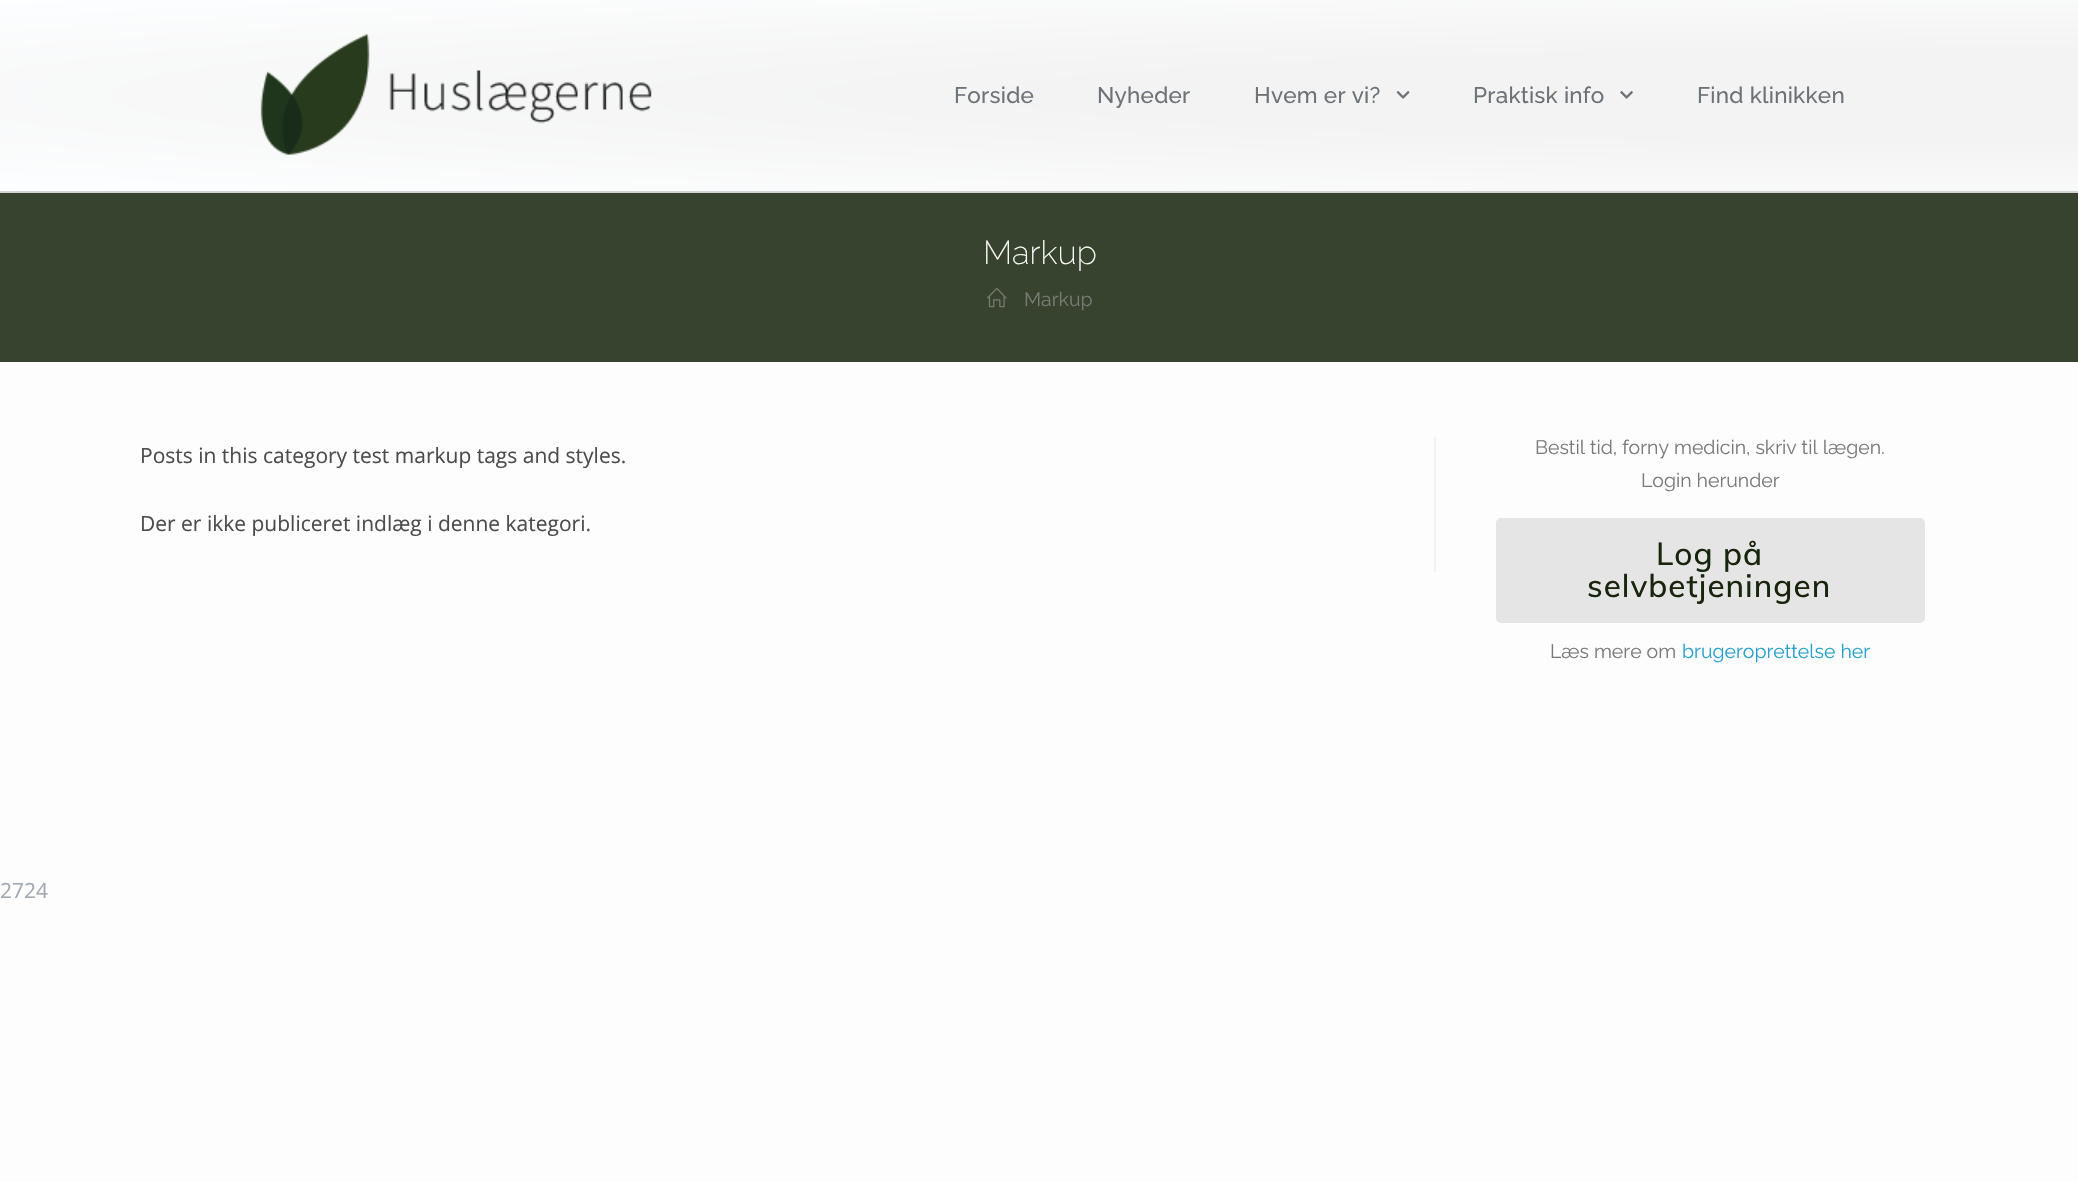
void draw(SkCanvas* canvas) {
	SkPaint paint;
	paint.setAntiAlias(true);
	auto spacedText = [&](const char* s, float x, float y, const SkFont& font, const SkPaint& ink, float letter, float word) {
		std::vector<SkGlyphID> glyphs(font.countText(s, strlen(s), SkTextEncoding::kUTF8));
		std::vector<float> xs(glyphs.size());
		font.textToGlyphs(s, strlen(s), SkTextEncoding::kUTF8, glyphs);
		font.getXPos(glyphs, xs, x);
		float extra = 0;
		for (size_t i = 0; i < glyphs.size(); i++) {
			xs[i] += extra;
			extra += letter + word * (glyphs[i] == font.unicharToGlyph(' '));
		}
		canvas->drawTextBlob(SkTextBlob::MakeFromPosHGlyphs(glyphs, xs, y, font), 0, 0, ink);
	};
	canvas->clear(0xfffdfdfd);
	{
		const SkColor colors[] = {0xfff3f3f3, 0xfffdfeff};
		const float stops[] = {0.34, 1};
		SkMatrix m = SkMatrix::Translate(2079, 95).preScale(2940, 135);
		paint.setShader(SkGradientShader::MakeRadial({0, 0}, 1, colors, stops, 2, SkTileMode::kClamp, 0, &m));
		paint.setAlpha(255);
	}
	canvas->drawRect(SkRect::MakeXYWH(0, 0, 2078, 191), paint);
	paint.setShader(nullptr);
	paint.setColor(0xffd3d3d3);
	canvas->drawRect(SkRect::MakeXYWH(0, 191, 2078, 2), paint);
	canvas->drawImageRect(SkImages::DeferredFromEncodedData(SkData::MakeFromFileName("img1.png")), SkRect::MakeXYWH(260, 34, 392, 121), SkSamplingOptions());
	SkFont f1(fontMgr->matchFamilyStyle("Raleway", SkFontStyle(500, SkFontStyle::kNormal_Width, SkFontStyle::kUpright_Slant)), 22.5);
	f1.setSubpixel(true);
	paint.setColor(0xff6d7277);
	spacedText("Forside", 954, 103, f1, paint, 0.25, 0);
	spacedText("Nyheder", 1097, 103, f1, paint, 0.25, 0);
	spacedText("Hvem er vi?", 1254, 103, f1, paint, 0.25, 0);
	canvas->drawImageRect(SkImages::DeferredFromEncodedData(SkData::MakeFromFileName("img2.png")), SkRect::MakeXYWH(1396, 91, 14, 8), SkSamplingOptions());
	spacedText("Praktisk info", 1473, 103, f1, paint, 0.25, 0);
	canvas->drawImageRect(SkImages::DeferredFromEncodedData(SkData::MakeFromFileName("img3.png")), SkRect::MakeXYWH(1620, 91, 13, 8), SkSamplingOptions());
	spacedText("Find klinikken", 1697, 103, f1, paint, 0.25, 0);
	paint.setColor(0xff38432f);
	canvas->drawRect(SkRect::MakeXYWH(0, 193, 2078, 169), paint);
	SkFont f2(fontMgr->matchFamilyStyle("Raleway", SkFontStyle(200, SkFontStyle::kNormal_Width, SkFontStyle::kUpright_Slant)), 33);
	f2.setSubpixel(true);
	paint.setColor(0xffffffff);
	canvas->drawString("Markup", 983, 264, f2, paint);
	canvas->drawImageRect(SkImages::DeferredFromEncodedData(SkData::MakeFromFileName("img4.png")), SkRect::MakeXYWH(987, 287, 20, 21), SkSamplingOptions());
	SkFont f3(fontMgr->matchFamilyStyle("Raleway", SkFontStyle::Normal()), 19.5);
	f3.setSubpixel(true);
	paint.setColor(0xff767c72);
	canvas->drawString("Markup", 1024, 306, f3, paint);
	paint.setColor(0xfff1f1f1);
	canvas->drawRect(SkRect::MakeXYWH(1434, 437, 2, 135), paint);
	SkFont f4(fontMgr->matchFamilyStyle("Open Sans", SkFontStyle::Normal()), 21);
	f4.setSubpixel(true);
	paint.setColor(0xff4c4c4c);
	canvas->drawString("Posts in this category test markup tags and styles.", 140, 463, f4, paint);
	canvas->drawString("Der er ikke publiceret indlæg i denne kategori.", 140, 531, f4, paint);
	paint.setColor(0xff7a7a7a);
	canvas->drawString("Bestil tid, forny medicin, skriv til lægen.", 1535, 454, f3, paint);
	canvas->drawString("Login herunder", 1641, 487, f3, paint);
	paint.setColor(0xffe5e5e5);
	canvas->drawRoundRect(SkRect::MakeXYWH(1497.5, 519.5, 426, 102), 3.5, 3.5, paint);
	paint.setStroke(true);
	paint.setStrokeWidth(3);
	canvas->drawRoundRect(SkRect::MakeXYWH(1497.5, 519.5, 426, 102), 3.5, 3.5, paint);
	SkFont f5(fontMgr->matchFamilyStyle("Muli", SkFontStyle(500, SkFontStyle::kNormal_Width, SkFontStyle::kUpright_Slant)), 31.5);
	f5.setSubpixel(true);
	paint.setStroke(false);
	paint.setColor(0xff18250d);
	spacedText("Log på", 1656, 565, f5, paint, 1, 0);
	spacedText("selvbetjeningen", 1587, 597, f5, paint, 1, 0);
	paint.setColor(0xff7a7a7a);
	canvas->drawString("Læs mere om", 1550, 658, f3, paint);
	paint.setColor(0xff28a0cc);
	canvas->drawString("brugeroprettelse her", 1682, 658, f3, paint);
	paint.setColor(0xffa0a8b1);
	canvas->drawString("2724", 0, 898, f4, paint);
}
